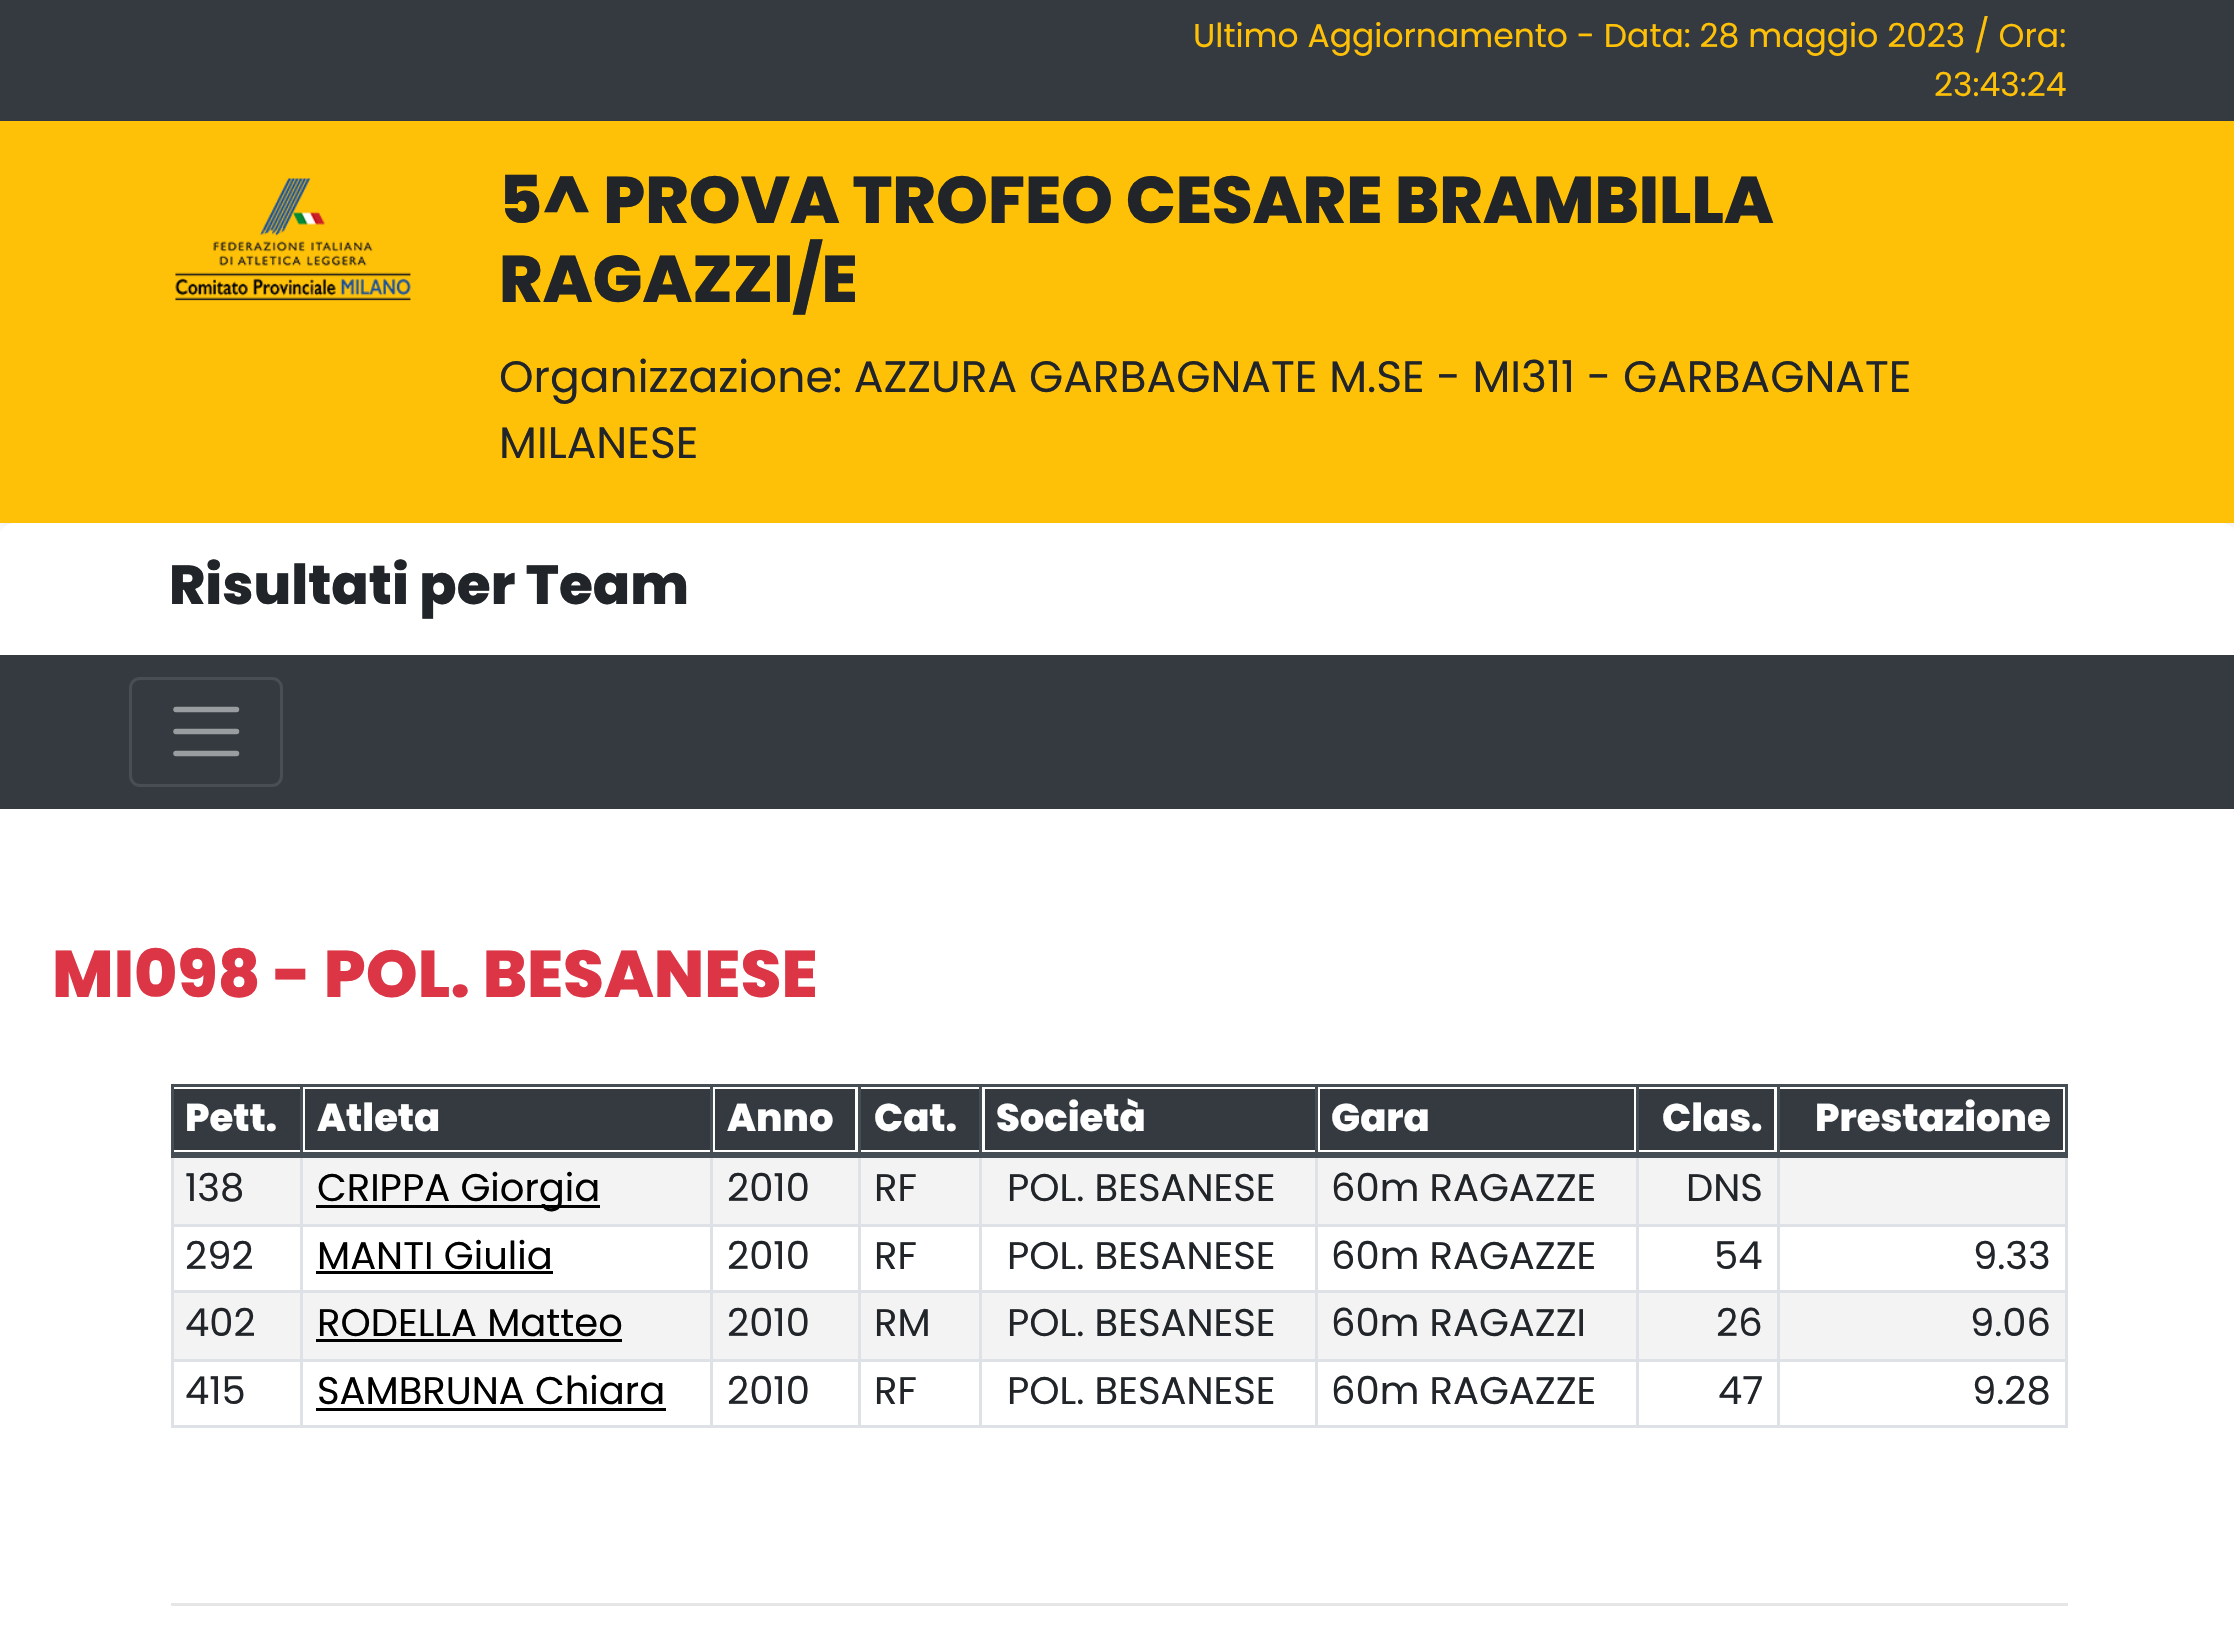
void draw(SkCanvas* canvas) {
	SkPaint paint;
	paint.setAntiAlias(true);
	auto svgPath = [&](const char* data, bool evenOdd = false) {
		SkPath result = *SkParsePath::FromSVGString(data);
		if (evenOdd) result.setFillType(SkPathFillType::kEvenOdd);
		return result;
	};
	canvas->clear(0xffffffff);
	paint.setColor(0xff343a40);
	canvas->drawRect(SkRect::MakeXYWH(0, 0, 2234, 121), paint);
	SkFont f1(fontMgr->matchFamilyStyle("Poppins", SkFontStyle::Normal()), 33);
	f1.setSubpixel(true);
	paint.setColor(0xffffc107);
	canvas->drawString("Ultimo Aggiornamento - Data: 28 maggio 2023 / Ora:", 1193, 47, f1, paint);
	canvas->drawString("23:43:24", 1934, 96, f1, paint);
	paint.setColor(0x12000000);
	paint.setMaskFilter(SkMaskFilter::MakeBlur(kNormal_SkBlurStyle, 5.5));
	canvas->drawRect(SkRect::MakeXYWH(0, 127, 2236, 401), paint);
	paint.setMaskFilter(nullptr);
	paint.setColor(0xffffc107);
	canvas->drawRect(SkRect::MakeXYWH(0, 121, 2234, 402), paint);
	canvas->drawImageRect(SkImages::DeferredFromEncodedData(SkData::MakeFromFileName("img1.png")), SkRect::MakeXYWH(175, 178, 236, 123), SkSamplingOptions());
	SkFont f2(fontMgr->matchFamilyStyle("Poppins", SkFontStyle(800, SkFontStyle::kNormal_Width, SkFontStyle::kUpright_Slant)), 66);
	f2.setSubpixel(true);
	paint.setColor(0xff212529);
	canvas->drawString("5^ PROVA TROFEO CESARE BRAMBILLA", 499, 223, f2, paint);
	canvas->drawString("RAGAZZI/E", 499, 302, f2, paint);
	SkFont f3(fontMgr->matchFamilyStyle("Poppins", SkFontStyle::Normal()), 44);
	f3.setSubpixel(true);
	canvas->drawString("Organizzazione: AZZURA GARBAGNATE M.SE - MI311 - GARBAGNATE", 499, 392, f3, paint);
	canvas->drawString("MILANESE", 499, 458, f3, paint);
	paint.setColor(0xffffffff);
	canvas->drawRoundRect(SkRect::MakeXYWH(0, 523, 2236, 132), 14, 14, paint);
	SkFont f4(fontMgr->matchFamilyStyle("Poppins", SkFontStyle(800, SkFontStyle::kNormal_Width, SkFontStyle::kUpright_Slant)), 55);
	f4.setSubpixel(true);
	paint.setColor(0xff212529);
	canvas->drawString("Risultati per Team", 169, 604, f4, paint);
	paint.setColor(0xff343a40);
	canvas->drawRect(SkRect::MakeXYWH(0, 655, 2234, 154), paint);
	paint.setStroke(true);
	paint.setStrokeWidth(3);
	paint.setColor(0xff484e53);
	canvas->drawRoundRect(SkRect::MakeXYWH(130.5, 678.5, 151, 107), 9.5, 9.5, paint);
	paint.setStrokeWidth(5.5);
	paint.setStrokeCap(SkPaint::kRound_Cap);
	paint.setColor(0xff9a9da0);
	canvas->drawPath(svgPath("M176 709.5H236.5M176 731.5H236.5M176 753.5H236.5"), paint);
	paint.setStroke(false);
	paint.setColor(0xffdc3545);
	canvas->drawString("MI098 - POL. BESANESE", 52, 997, f2, paint);
	paint.setColor(0xff343a40);
	canvas->drawRect(SkRect::MakeXYWH(174, 1089, 126, 61), paint);
	paint.setColor(0xff454d55);
	canvas->drawRect(SkRect::MakeXYWH(1777, 1084, 291, 3), paint);
	paint.setColor(0xfff3f3f3);
	canvas->drawRect(SkRect::MakeXYWH(174, 1158, 1891, 66), paint);
	paint.setColor(0xffdee2e6);
	canvas->drawRect(SkRect::MakeXYWH(1777, 1224, 291, 3), paint);
	canvas->drawRect(SkRect::MakeXYWH(1777, 1290, 291, 3), paint);
	paint.setColor(0xfff3f3f3);
	canvas->drawRect(SkRect::MakeXYWH(174, 1293, 1891, 66), paint);
	paint.setColor(0xffdee2e6);
	canvas->drawRect(SkRect::MakeXYWH(1777, 1359, 291, 3), paint);
	canvas->drawRect(SkRect::MakeXYWH(2065, 1359, 3, 68), paint);
	canvas->drawRect(SkRect::MakeXYWH(1777, 1425, 291, 3), paint);
	canvas->drawRect(SkRect::MakeXYWH(1777, 1359, 3, 68), paint);
	canvas->drawRect(SkRect::MakeXYWH(1636, 1359, 143, 3), paint);
	canvas->drawRect(SkRect::MakeXYWH(1777, 1290, 3, 71), paint);
	canvas->drawRect(SkRect::MakeXYWH(1636, 1290, 143, 3), paint);
	canvas->drawRect(SkRect::MakeXYWH(1777, 1224, 3, 69), paint);
	canvas->drawRect(SkRect::MakeXYWH(1636, 1224, 143, 3), paint);
	canvas->drawRect(SkRect::MakeXYWH(1777, 1152, 3, 75), paint);
	paint.setColor(0xff454d55);
	canvas->drawRect(SkRect::MakeXYWH(1777, 1084, 3, 71), paint);
	canvas->drawRect(SkRect::MakeXYWH(1636, 1084, 143, 3), paint);
	paint.setColor(0xffdee2e6);
	canvas->drawRect(SkRect::MakeXYWH(1636, 1425, 143, 3), paint);
	canvas->drawRect(SkRect::MakeXYWH(1636, 1359, 3, 68), paint);
	canvas->drawRect(SkRect::MakeXYWH(1315, 1359, 324, 3), paint);
	canvas->drawRect(SkRect::MakeXYWH(1636, 1290, 3, 71), paint);
	canvas->drawRect(SkRect::MakeXYWH(1315, 1290, 324, 3), paint);
	canvas->drawRect(SkRect::MakeXYWH(1636, 1224, 3, 69), paint);
	canvas->drawRect(SkRect::MakeXYWH(1315, 1224, 324, 3), paint);
	canvas->drawRect(SkRect::MakeXYWH(1636, 1152, 3, 75), paint);
	paint.setColor(0xff454d55);
	canvas->drawRect(SkRect::MakeXYWH(1636, 1084, 3, 71), paint);
	canvas->drawRect(SkRect::MakeXYWH(1315, 1084, 324, 3), paint);
	paint.setColor(0xffdee2e6);
	canvas->drawRect(SkRect::MakeXYWH(1315, 1425, 324, 3), paint);
	canvas->drawRect(SkRect::MakeXYWH(1315, 1359, 3, 68), paint);
	canvas->drawRect(SkRect::MakeXYWH(979, 1359, 338, 3), paint);
	canvas->drawRect(SkRect::MakeXYWH(1315, 1290, 3, 71), paint);
	canvas->drawRect(SkRect::MakeXYWH(979, 1290, 338, 3), paint);
	canvas->drawRect(SkRect::MakeXYWH(1315, 1224, 3, 69), paint);
	canvas->drawRect(SkRect::MakeXYWH(979, 1224, 338, 3), paint);
	canvas->drawRect(SkRect::MakeXYWH(1315, 1152, 3, 75), paint);
	paint.setColor(0xff454d55);
	canvas->drawRect(SkRect::MakeXYWH(1315, 1084, 3, 71), paint);
	canvas->drawRect(SkRect::MakeXYWH(979, 1084, 338, 3), paint);
	paint.setColor(0xffdee2e6);
	canvas->drawRect(SkRect::MakeXYWH(979, 1425, 338, 3), paint);
	canvas->drawRect(SkRect::MakeXYWH(979, 1359, 3, 68), paint);
	canvas->drawRect(SkRect::MakeXYWH(858, 1359, 124, 3), paint);
	canvas->drawRect(SkRect::MakeXYWH(979, 1290, 3, 71), paint);
	canvas->drawRect(SkRect::MakeXYWH(858, 1290, 124, 3), paint);
	canvas->drawRect(SkRect::MakeXYWH(979, 1224, 3, 69), paint);
	canvas->drawRect(SkRect::MakeXYWH(858, 1224, 124, 3), paint);
	canvas->drawRect(SkRect::MakeXYWH(979, 1152, 3, 75), paint);
	paint.setColor(0xff454d55);
	canvas->drawRect(SkRect::MakeXYWH(979, 1084, 3, 71), paint);
	canvas->drawRect(SkRect::MakeXYWH(858, 1084, 124, 3), paint);
	paint.setColor(0xffdee2e6);
	canvas->drawRect(SkRect::MakeXYWH(858, 1425, 124, 3), paint);
	canvas->drawRect(SkRect::MakeXYWH(858, 1359, 3, 68), paint);
	canvas->drawRect(SkRect::MakeXYWH(710, 1359, 151, 3), paint);
	canvas->drawRect(SkRect::MakeXYWH(858, 1290, 3, 71), paint);
	canvas->drawRect(SkRect::MakeXYWH(710, 1290, 151, 3), paint);
	canvas->drawRect(SkRect::MakeXYWH(858, 1224, 3, 69), paint);
	canvas->drawRect(SkRect::MakeXYWH(710, 1224, 151, 3), paint);
	canvas->drawRect(SkRect::MakeXYWH(858, 1152, 3, 75), paint);
	paint.setColor(0xff454d55);
	canvas->drawRect(SkRect::MakeXYWH(858, 1084, 3, 71), paint);
	canvas->drawRect(SkRect::MakeXYWH(710, 1084, 151, 3), paint);
	paint.setColor(0xffdee2e6);
	canvas->drawRect(SkRect::MakeXYWH(710, 1425, 151, 3), paint);
	canvas->drawRect(SkRect::MakeXYWH(710, 1359, 3, 68), paint);
	canvas->drawRect(SkRect::MakeXYWH(300, 1359, 412, 3), paint);
	canvas->drawRect(SkRect::MakeXYWH(710, 1290, 3, 71), paint);
	canvas->drawRect(SkRect::MakeXYWH(300, 1290, 412, 3), paint);
	canvas->drawRect(SkRect::MakeXYWH(710, 1224, 3, 69), paint);
	canvas->drawRect(SkRect::MakeXYWH(300, 1224, 412, 3), paint);
	canvas->drawRect(SkRect::MakeXYWH(710, 1152, 3, 75), paint);
	paint.setColor(0xff454d55);
	canvas->drawRect(SkRect::MakeXYWH(710, 1084, 3, 71), paint);
	canvas->drawRect(SkRect::MakeXYWH(300, 1084, 412, 3), paint);
	paint.setColor(0xffdee2e6);
	canvas->drawRect(SkRect::MakeXYWH(300, 1425, 412, 3), paint);
	canvas->drawRect(SkRect::MakeXYWH(300, 1359, 3, 68), paint);
	canvas->drawRect(SkRect::MakeXYWH(171, 1359, 132, 3), paint);
	canvas->drawRect(SkRect::MakeXYWH(300, 1290, 3, 71), paint);
	canvas->drawRect(SkRect::MakeXYWH(171, 1290, 132, 3), paint);
	canvas->drawRect(SkRect::MakeXYWH(300, 1224, 3, 69), paint);
	canvas->drawRect(SkRect::MakeXYWH(171, 1224, 132, 3), paint);
	canvas->drawRect(SkRect::MakeXYWH(300, 1152, 3, 75), paint);
	paint.setColor(0xff454d55);
	canvas->drawRect(SkRect::MakeXYWH(300, 1084, 3, 71), paint);
	canvas->drawRect(SkRect::MakeXYWH(171, 1084, 132, 3), paint);
	paint.setColor(0xffdee2e6);
	canvas->drawRect(SkRect::MakeXYWH(171, 1425, 132, 3), paint);
	canvas->drawRect(SkRect::MakeXYWH(171, 1359, 3, 68), paint);
	canvas->drawRect(SkRect::MakeXYWH(171, 1290, 3, 71), paint);
	canvas->drawRect(SkRect::MakeXYWH(171, 1152, 3, 141), paint);
	paint.setColor(0xff454d55);
	canvas->drawRect(SkRect::MakeXYWH(171, 1084, 3, 71), paint);
	SkFont f5(fontMgr->matchFamilyStyle("Poppins", SkFontStyle(800, SkFontStyle::kNormal_Width, SkFontStyle::kUpright_Slant)), 38.5);
	f5.setSubpixel(true);
	paint.setColor(0xffffffff);
	canvas->drawString("Pett.", 185, 1131, f5, paint);
	paint.setColor(0xff343a40);
	canvas->drawRect(SkRect::MakeXYWH(305, 1089, 405, 61), paint);
	paint.setColor(0xffffffff);
	canvas->drawString("Atleta", 317, 1131, f5, paint);
	paint.setColor(0xff343a40);
	canvas->drawRect(SkRect::MakeXYWH(715, 1089, 140, 61), paint);
	paint.setColor(0xffffffff);
	canvas->drawString("Anno", 727, 1131, f5, paint);
	paint.setColor(0xff343a40);
	canvas->drawRect(SkRect::MakeXYWH(861, 1089, 118, 61), paint);
	paint.setColor(0xffffffff);
	canvas->drawString("Cat.", 874, 1131, f5, paint);
	paint.setColor(0xff343a40);
	canvas->drawRect(SkRect::MakeXYWH(985, 1089, 330, 61), paint);
	paint.setColor(0xffffffff);
	canvas->drawString("Società", 996, 1131, f5, paint);
	paint.setColor(0xff343a40);
	canvas->drawRect(SkRect::MakeXYWH(1320, 1089, 314, 61), paint);
	paint.setColor(0xffffffff);
	canvas->drawString("Gara", 1331, 1131, f5, paint);
	paint.setColor(0xff343a40);
	canvas->drawRect(SkRect::MakeXYWH(1639, 1089, 135, 61), paint);
	paint.setColor(0xffffffff);
	canvas->drawString("Clas.", 1662, 1131, f5, paint);
	paint.setColor(0xff343a40);
	canvas->drawRect(SkRect::MakeXYWH(1780, 1089, 283, 61), paint);
	paint.setColor(0xffdee2e6);
	canvas->drawRect(SkRect::MakeXYWH(2065, 1290, 3, 71), paint);
	canvas->drawRect(SkRect::MakeXYWH(2065, 1152, 3, 141), paint);
	paint.setColor(0xff454d55);
	canvas->drawRect(SkRect::MakeXYWH(2065, 1084, 3, 71), paint);
	canvas->drawRect(SkRect::MakeXYWH(171, 1152, 1897, 6), paint);
	paint.setColor(0xffffffff);
	canvas->drawString("Prestazione", 1815, 1131, f5, paint);
	SkFont f6(fontMgr->matchFamilyStyle("Poppins", SkFontStyle::Normal()), 38.5);
	f6.setSubpixel(true);
	paint.setColor(0xff212529);
	canvas->drawString("138", 185, 1201, f6, paint);
	paint.setColor(0xff000000);
	canvas->drawRect(SkRect::MakeXYWH(316, 1205, 284, 3), paint);
	canvas->drawString("CRIPPA Giorgia", 317, 1201, f6, paint);
	paint.setColor(0xff212529);
	canvas->drawString("2010", 727, 1201, f6, paint);
	canvas->drawString("RF", 874, 1201, f6, paint);
	canvas->drawString("POL. BESANESE", 1007, 1201, f6, paint);
	canvas->drawString("60m RAGAZZE", 1331, 1201, f6, paint);
	canvas->drawString("DNS", 1686, 1201, f6, paint);
	canvas->drawString("292", 185, 1269, f6, paint);
	paint.setColor(0xff000000);
	canvas->drawString("MANTI Giulia", 317, 1269, f6, paint);
	canvas->drawRect(SkRect::MakeXYWH(316, 1271, 237, 3), paint);
	paint.setColor(0xff212529);
	canvas->drawString("2010", 727, 1269, f6, paint);
	canvas->drawString("RF", 874, 1269, f6, paint);
	canvas->drawString("POL. BESANESE", 1007, 1269, f6, paint);
	canvas->drawString("60m RAGAZZE", 1331, 1269, f6, paint);
	canvas->drawString("54", 1714, 1269, f6, paint);
	canvas->drawString("9.33", 1973, 1269, f6, paint);
	canvas->drawString("402", 185, 1336, f6, paint);
	paint.setColor(0xff000000);
	canvas->drawString("RODELLA Matteo", 317, 1336, f6, paint);
	canvas->drawRect(SkRect::MakeXYWH(316, 1339, 306, 3), paint);
	paint.setColor(0xff212529);
	canvas->drawString("2010", 727, 1336, f6, paint);
	canvas->drawString("RM", 874, 1336, f6, paint);
	canvas->drawString("POL. BESANESE", 1007, 1336, f6, paint);
	canvas->drawString("60m RAGAZZI", 1331, 1336, f6, paint);
	canvas->drawString("26", 1716, 1336, f6, paint);
	canvas->drawString("9.06", 1970, 1336, f6, paint);
	canvas->drawString("415", 185, 1404, f6, paint);
	paint.setColor(0xff000000);
	canvas->drawString("SAMBRUNA Chiara", 317, 1404, f6, paint);
	canvas->drawRect(SkRect::MakeXYWH(316, 1408, 350, 3), paint);
	paint.setColor(0xff212529);
	canvas->drawString("2010", 727, 1404, f6, paint);
	canvas->drawString("RF", 874, 1404, f6, paint);
	canvas->drawString("POL. BESANESE", 1007, 1404, f6, paint);
	canvas->drawString("60m RAGAZZE", 1331, 1404, f6, paint);
	canvas->drawString("47", 1718, 1404, f6, paint);
	canvas->drawString("9.28", 1972, 1404, f6, paint);
	paint.setColor(0xffe6e6e6);
	canvas->drawRect(SkRect::MakeXYWH(171, 1603, 1897, 3), paint);
}
